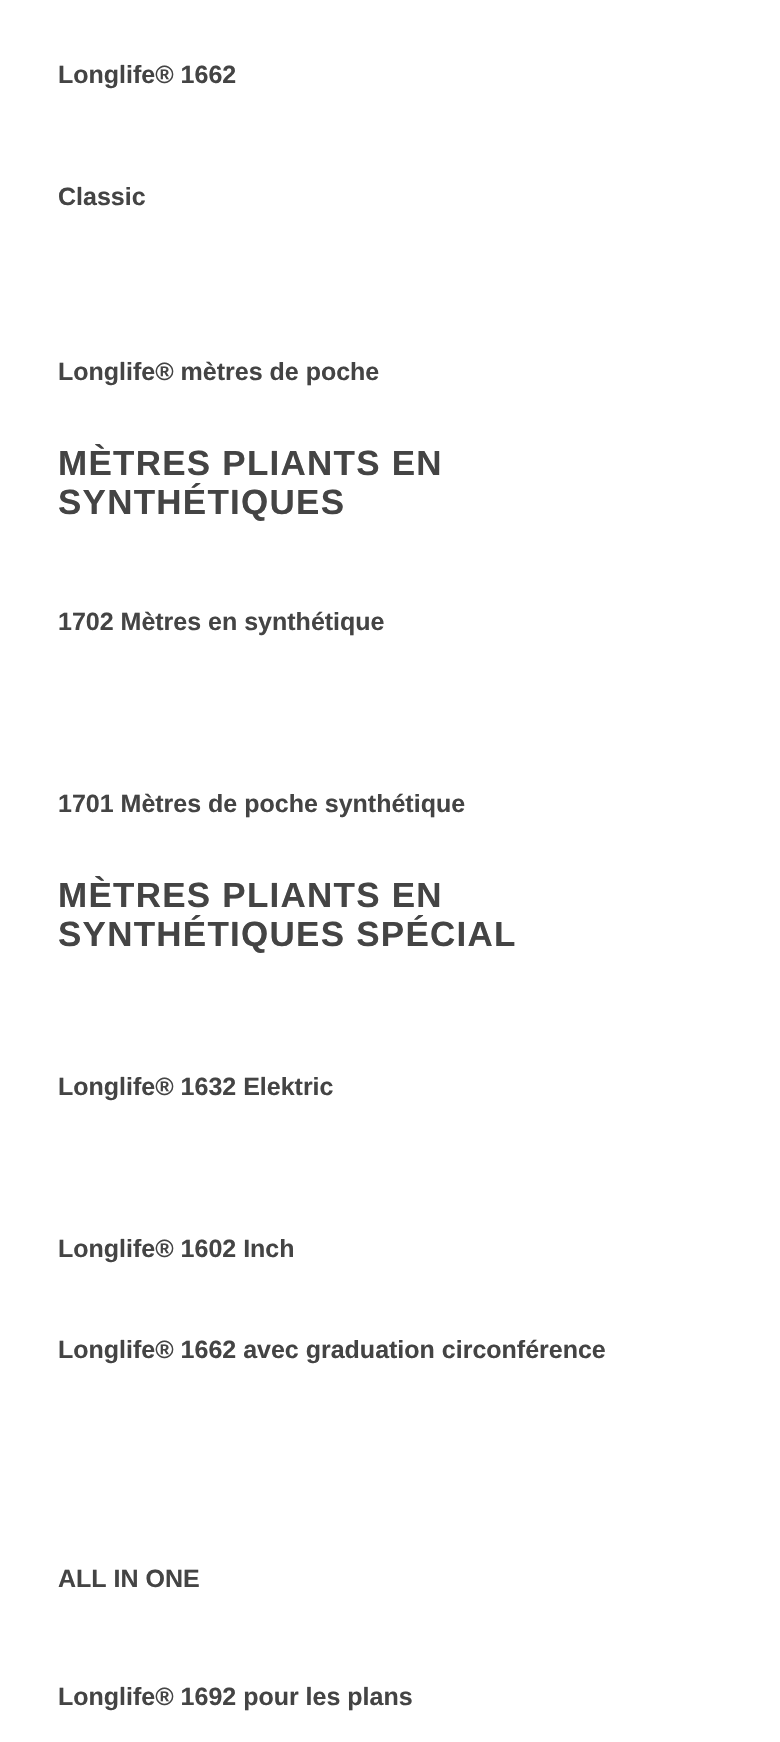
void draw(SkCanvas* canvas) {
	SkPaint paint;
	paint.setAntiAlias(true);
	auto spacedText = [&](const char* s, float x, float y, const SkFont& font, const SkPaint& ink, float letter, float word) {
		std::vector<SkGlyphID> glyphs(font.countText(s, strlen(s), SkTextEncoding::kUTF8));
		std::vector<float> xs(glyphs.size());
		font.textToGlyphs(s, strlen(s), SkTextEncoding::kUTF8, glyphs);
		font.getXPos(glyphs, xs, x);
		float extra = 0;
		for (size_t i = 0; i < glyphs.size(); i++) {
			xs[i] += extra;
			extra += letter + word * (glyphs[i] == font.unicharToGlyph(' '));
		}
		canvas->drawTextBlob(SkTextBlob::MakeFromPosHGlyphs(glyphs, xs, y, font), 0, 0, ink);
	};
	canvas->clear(0xffffffff);
	SkFont f1(fontMgr->matchFamilyStyle("Liberation Sans", SkFontStyle::Bold()), 25);
	f1.setSubpixel(true);
	paint.setColor(0xff444444);
	canvas->drawString("Longlife® 1662", 58, 83, f1, paint);
	canvas->drawString("Classic", 58, 205, f1, paint);
	canvas->drawString("Longlife® mètres de poche", 58, 380, f1, paint);
	SkFont f2(fontMgr->matchFamilyStyle("Liberation Sans", SkFontStyle::Bold()), 35);
	f2.setSubpixel(true);
	spacedText("MÈTRES PLIANTS EN", 58, 475, f2, paint, 1.25, 0);
	spacedText("SYNTHÉTIQUES", 58, 514, f2, paint, 1.25, 0);
	canvas->drawString("1702 Mètres en synthétique", 58, 630, f1, paint);
	canvas->drawString("1701 Mètres de poche synthétique", 58, 812, f1, paint);
	spacedText("MÈTRES PLIANTS EN", 58, 907, f2, paint, 1.25, 0);
	spacedText("SYNTHÉTIQUES SPÉCIAL", 58, 946, f2, paint, 1.25, 0);
	canvas->drawString("Longlife® 1632 Elektric", 58, 1095, f1, paint);
	canvas->drawString("Longlife® 1602 Inch", 58, 1257, f1, paint);
	canvas->drawString("Longlife® 1662 avec graduation circonférence", 58, 1358, f1, paint);
	canvas->drawString("ALL IN ONE", 58, 1587, f1, paint);
	canvas->drawString("Longlife® 1692 pour les plans", 58, 1705, f1, paint);
}
